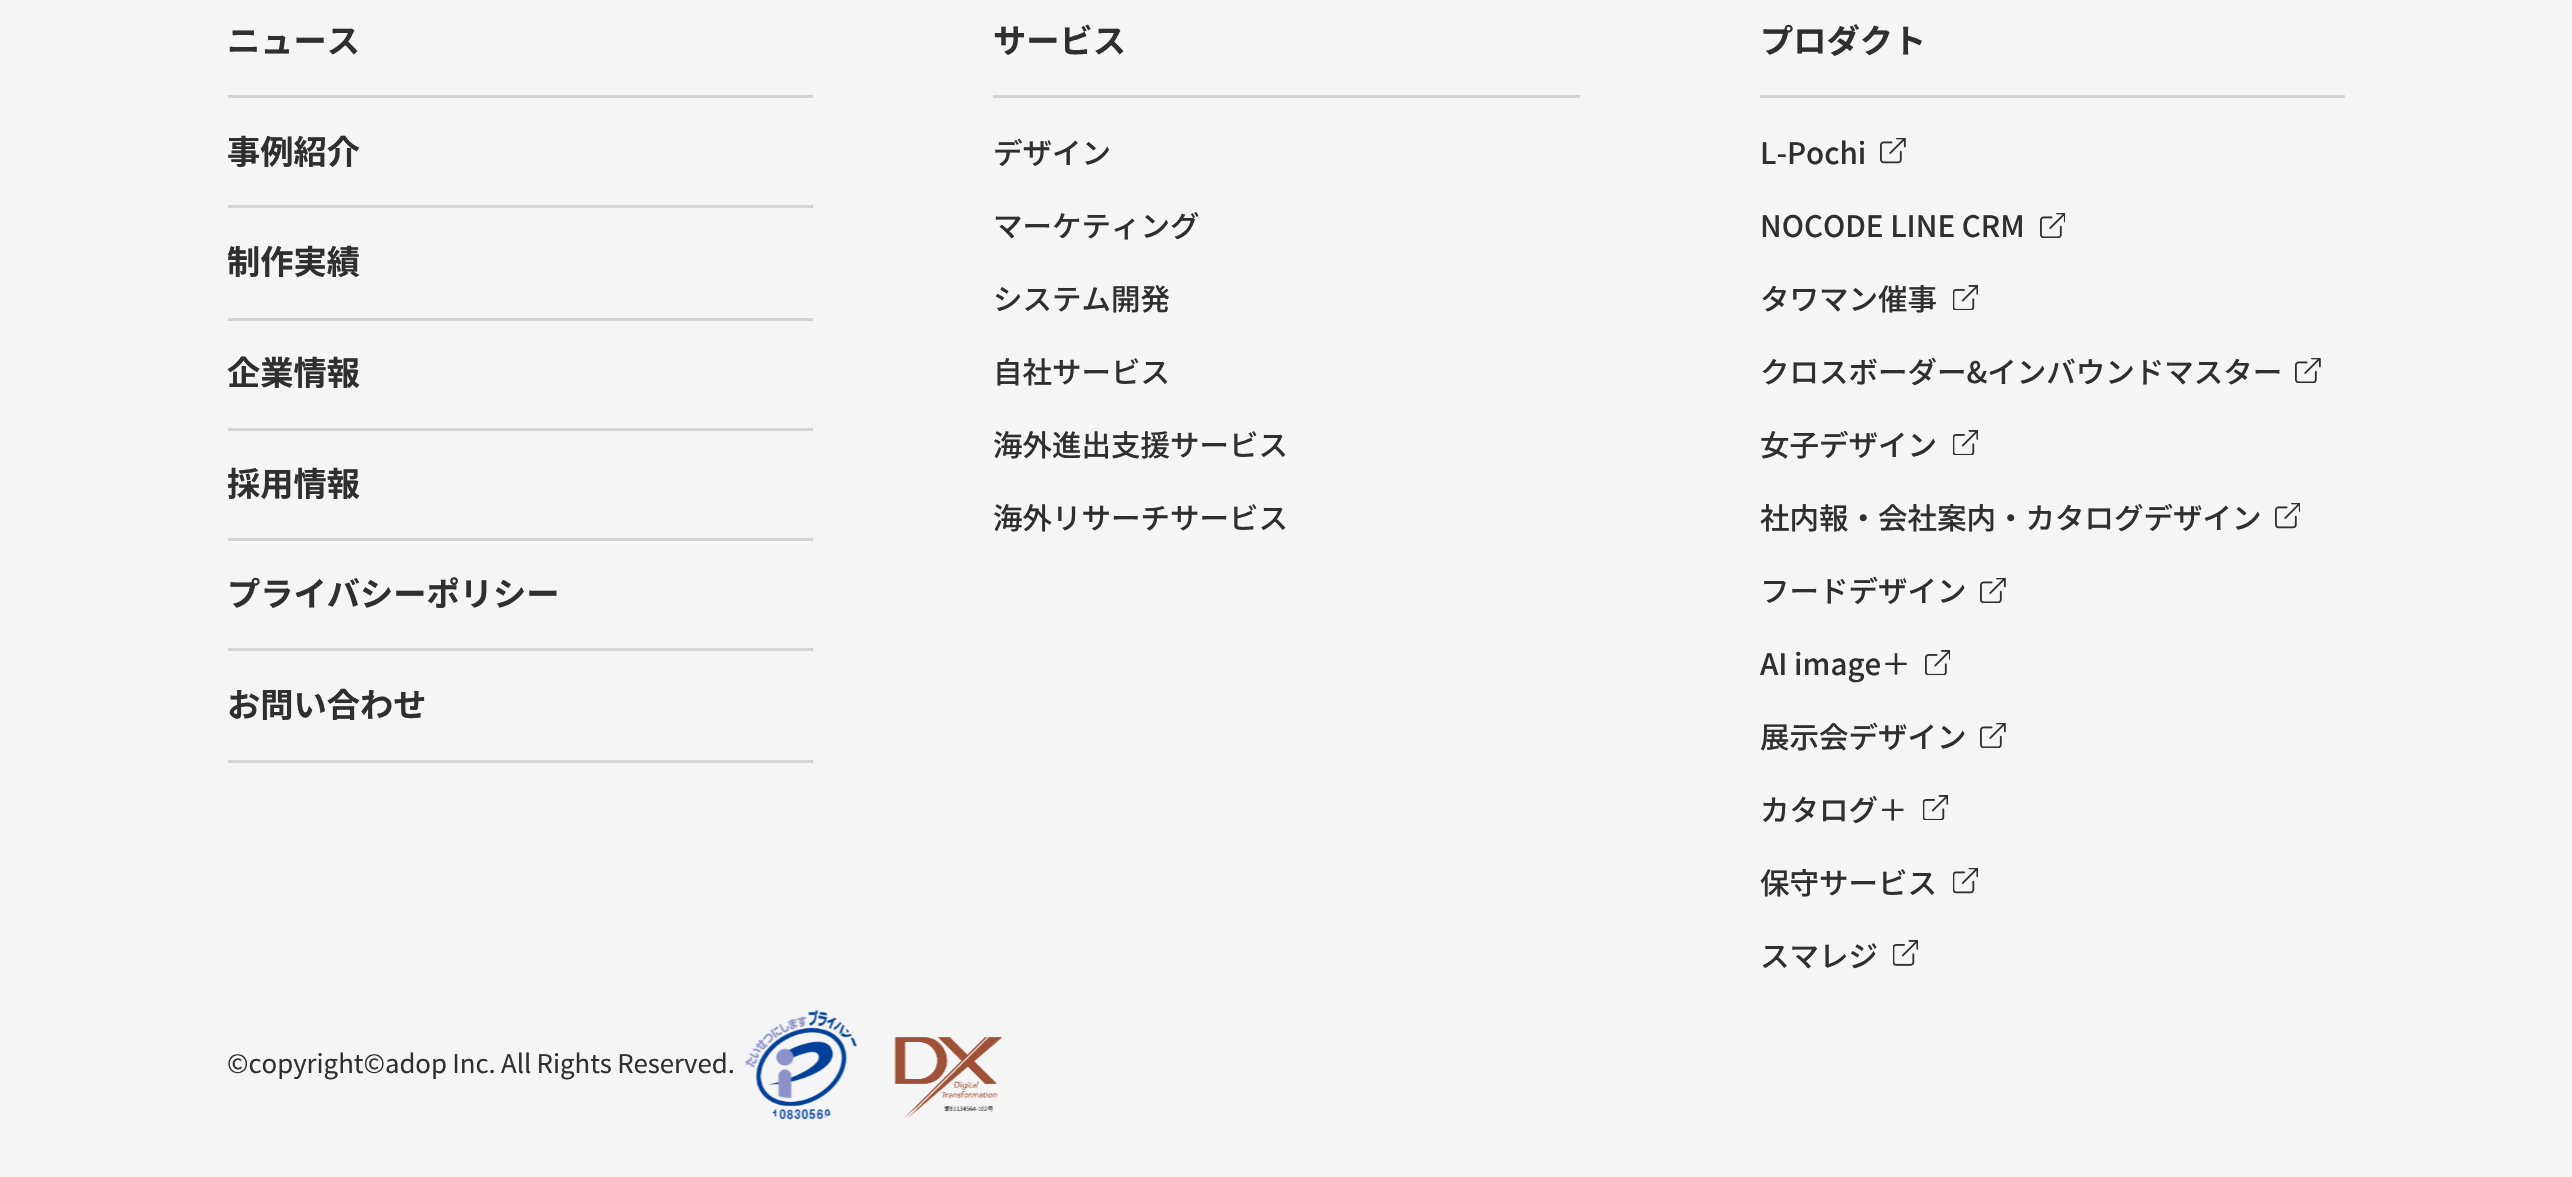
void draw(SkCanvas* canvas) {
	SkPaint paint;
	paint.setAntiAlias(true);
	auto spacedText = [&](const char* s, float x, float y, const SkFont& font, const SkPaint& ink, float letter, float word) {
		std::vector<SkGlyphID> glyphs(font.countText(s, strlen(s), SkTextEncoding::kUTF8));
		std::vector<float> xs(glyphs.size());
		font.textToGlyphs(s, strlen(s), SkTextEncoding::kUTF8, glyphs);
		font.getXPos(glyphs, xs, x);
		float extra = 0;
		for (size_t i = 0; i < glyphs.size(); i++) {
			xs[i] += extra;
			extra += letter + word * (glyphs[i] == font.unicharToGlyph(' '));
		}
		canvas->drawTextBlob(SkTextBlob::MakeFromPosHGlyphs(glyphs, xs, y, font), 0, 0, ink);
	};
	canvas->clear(0xfff5f5f5);
	paint.setColor(0xffd3d3d3);
	canvas->drawRect(SkRect::MakeXYWH(228, 95, 585, 3), paint);
	SkFont f1(fontMgr->matchFamilyStyle("Noto Sans JP", SkFontStyle::Bold()), 33.25);
	f1.setSubpixel(true);
	paint.setColor(0xff2f2f2f);
	canvas->drawString("ニュース", 227, 53, f1, paint);
	paint.setColor(0xffd3d3d3);
	canvas->drawRect(SkRect::MakeXYWH(228, 205, 585, 3), paint);
	paint.setColor(0xff2f2f2f);
	canvas->drawString("事例紹介", 227, 164, f1, paint);
	paint.setColor(0xffd3d3d3);
	canvas->drawRect(SkRect::MakeXYWH(228, 318, 585, 3), paint);
	paint.setColor(0xff2f2f2f);
	canvas->drawString("制作実績", 227, 274, f1, paint);
	paint.setColor(0xffd3d3d3);
	canvas->drawRect(SkRect::MakeXYWH(228, 428, 585, 3), paint);
	paint.setColor(0xff2f2f2f);
	canvas->drawString("企業情報", 227, 385, f1, paint);
	paint.setColor(0xffd3d3d3);
	canvas->drawRect(SkRect::MakeXYWH(228, 538, 585, 3), paint);
	paint.setColor(0xff2f2f2f);
	canvas->drawString("採用情報", 227, 496, f1, paint);
	paint.setColor(0xffd3d3d3);
	canvas->drawRect(SkRect::MakeXYWH(228, 648, 585, 3), paint);
	paint.setColor(0xff2f2f2f);
	canvas->drawString("プライバシーポリシー", 227, 606, f1, paint);
	paint.setColor(0xffd3d3d3);
	canvas->drawRect(SkRect::MakeXYWH(228, 760, 585, 3), paint);
	paint.setColor(0xff2f2f2f);
	canvas->drawString("お問い合わせ", 227, 717, f1, paint);
	paint.setColor(0xffd3d3d3);
	canvas->drawRect(SkRect::MakeXYWH(993, 95, 587, 3), paint);
	paint.setColor(0xff2f2f2f);
	canvas->drawString("サービス", 993, 53, f1, paint);
	SkFont f2(fontMgr->matchFamilyStyle("Noto Sans JP", SkFontStyle(500, SkFontStyle::kNormal_Width, SkFontStyle::kUpright_Slant)), 29.5);
	f2.setSubpixel(true);
	canvas->drawString("デザイン", 993, 164, f2, paint);
	canvas->drawString("マーケティング", 993, 237, f2, paint);
	canvas->drawString("システム開発", 993, 310, f2, paint);
	canvas->drawString("自社サービス", 993, 383, f2, paint);
	canvas->drawString("海外進出支援サービス", 993, 456, f2, paint);
	canvas->drawString("海外リサーチサービス", 993, 529, f2, paint);
	paint.setColor(0xffd3d3d3);
	canvas->drawRect(SkRect::MakeXYWH(1760, 95, 585, 3), paint);
	paint.setColor(0xff2f2f2f);
	canvas->drawString("プロダクト", 1760, 53, f1, paint);
	canvas->drawString("L-Pochi", 1760, 164, f2, paint);
	canvas->drawImageRect(SkImages::DeferredFromEncodedData(SkData::MakeFromFileName("img1.png")), SkRect::MakeXYWH(1880, 138, 26, 26), SkSamplingOptions());
	canvas->drawString("NOCODE LINE CRM", 1760, 237, f2, paint);
	canvas->drawImageRect(SkImages::DeferredFromEncodedData(SkData::MakeFromFileName("img2.png")), SkRect::MakeXYWH(2040, 213, 25, 25), SkSamplingOptions());
	canvas->drawString("タワマン催事", 1760, 310, f2, paint);
	canvas->drawImageRect(SkImages::DeferredFromEncodedData(SkData::MakeFromFileName("img3.png")), SkRect::MakeXYWH(1953, 285, 25, 25), SkSamplingOptions());
	canvas->drawString("クロスボーダー&インバウンドマスター", 1760, 383, f2, paint);
	canvas->drawImageRect(SkImages::DeferredFromEncodedData(SkData::MakeFromFileName("img4.png")), SkRect::MakeXYWH(2295, 358, 26, 25), SkSamplingOptions());
	canvas->drawString("女子デザイン", 1760, 456, f2, paint);
	canvas->drawImageRect(SkImages::DeferredFromEncodedData(SkData::MakeFromFileName("img3.png")), SkRect::MakeXYWH(1953, 430, 25, 25), SkSamplingOptions());
	canvas->drawString("社内報・会社案内・カタログデザイン", 1760, 529, f2, paint);
	canvas->drawImageRect(SkImages::DeferredFromEncodedData(SkData::MakeFromFileName("img5.png")), SkRect::MakeXYWH(2275, 503, 25, 26), SkSamplingOptions());
	canvas->drawString("フードデザイン", 1760, 602, f2, paint);
	canvas->drawImageRect(SkImages::DeferredFromEncodedData(SkData::MakeFromFileName("img4.png")), SkRect::MakeXYWH(1980, 578, 26, 25), SkSamplingOptions());
	canvas->drawString("AI image＋", 1760, 675, f2, paint);
	canvas->drawImageRect(SkImages::DeferredFromEncodedData(SkData::MakeFromFileName("img6.png")), SkRect::MakeXYWH(1925, 650, 25, 25), SkSamplingOptions());
	canvas->drawString("展示会デザイン", 1760, 748, f2, paint);
	canvas->drawImageRect(SkImages::DeferredFromEncodedData(SkData::MakeFromFileName("img4.png")), SkRect::MakeXYWH(1980, 723, 26, 25), SkSamplingOptions());
	canvas->drawString("カタログ＋", 1760, 821, f2, paint);
	canvas->drawImageRect(SkImages::DeferredFromEncodedData(SkData::MakeFromFileName("img3.png")), SkRect::MakeXYWH(1923, 795, 25, 25), SkSamplingOptions());
	canvas->drawString("保守サービス", 1760, 894, f2, paint);
	canvas->drawImageRect(SkImages::DeferredFromEncodedData(SkData::MakeFromFileName("img7.png")), SkRect::MakeXYWH(1953, 868, 25, 26), SkSamplingOptions());
	canvas->drawString("スマレジ", 1760, 967, f2, paint);
	canvas->drawImageRect(SkImages::DeferredFromEncodedData(SkData::MakeFromFileName("img8.png")), SkRect::MakeXYWH(1893, 940, 25, 26), SkSamplingOptions());
	SkFont f3(fontMgr->matchFamilyStyle("Noto Sans JP", SkFontStyle::Normal()), 25.75);
	f3.setSubpixel(true);
	spacedText("©copyright©adop Inc. All Rights Reserved.", 227, 1073, f3, paint, 0, -0.5);
	canvas->drawImageRect(SkImages::DeferredFromEncodedData(SkData::MakeFromFileName("img9.png")), SkRect::MakeXYWH(744, 1009, 113, 111), SkSamplingOptions());
	canvas->drawImageRect(SkImages::DeferredFromEncodedData(SkData::MakeFromFileName("img10.png")), SkRect::MakeXYWH(894, 1037, 109, 81), SkSamplingOptions());
}
